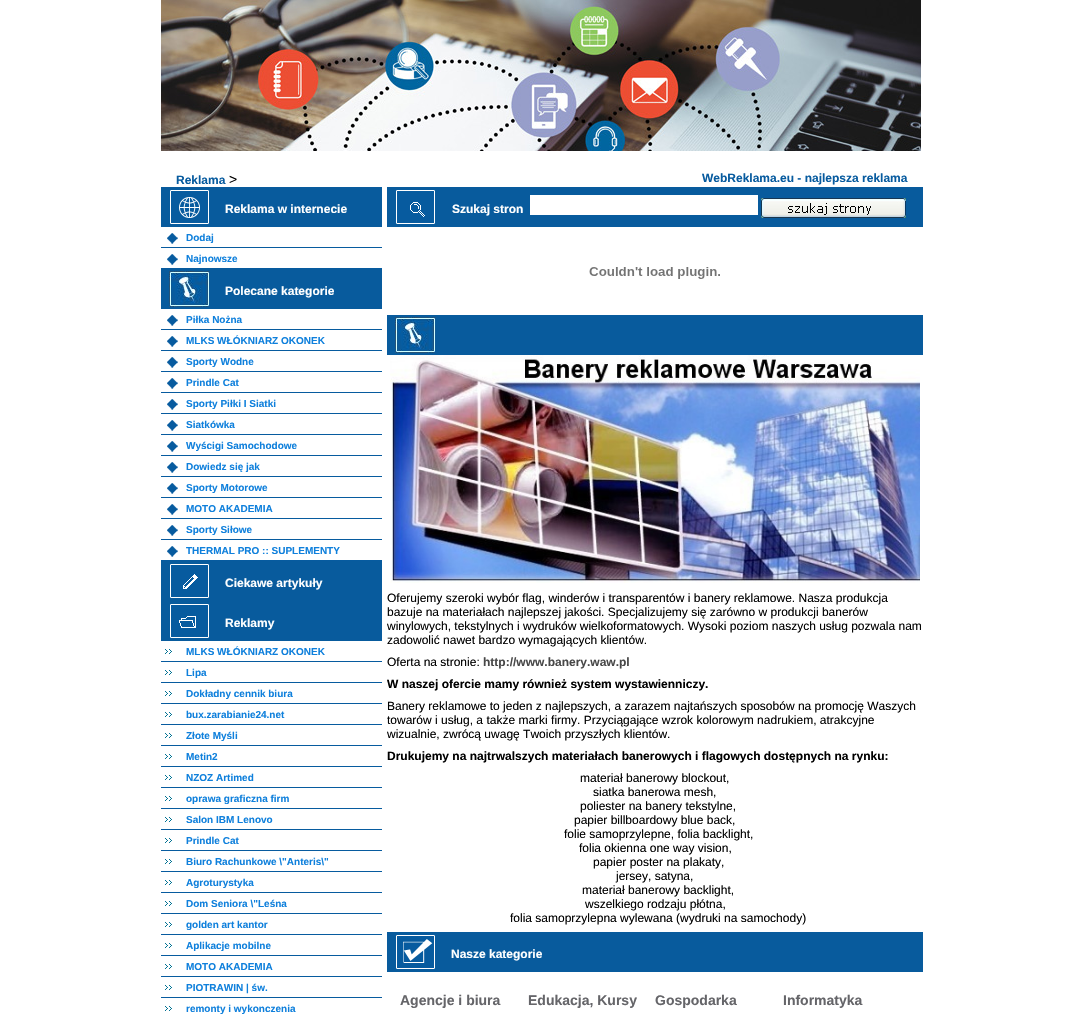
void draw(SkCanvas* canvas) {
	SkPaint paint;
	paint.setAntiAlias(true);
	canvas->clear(0xffffffff);
	canvas->drawImageRect(SkImages::DeferredFromEncodedData(SkData::MakeFromFileName("img1.png")), SkRect::MakeXYWH(161, 0, 760, 151), SkSamplingOptions());
	SkFont f1(fontMgr->matchFamilyStyle("Liberation Sans", SkFontStyle::Bold()), 12);
	f1.setSubpixel(true);
	paint.setColor(0xff075b9f);
	canvas->drawString("Reklama", 176, 184, f1, paint);
	SkFont f2(fontMgr->matchFamilyStyle("Liberation Sans", SkFontStyle::Normal()), 14);
	f2.setSubpixel(true);
	paint.setColor(0xff000000);
	canvas->drawString(">", 229, 184, f2, paint);
	paint.setColor(0xff075b9f);
	canvas->drawString("WebReklama.eu - najlepsza reklama", 702, 182, f1, paint);
	paint.setColor(0xff085b9d);
	canvas->drawRect(SkRect::MakeXYWH(161, 187, 221, 40), paint);
	canvas->drawImageRect(SkImages::DeferredFromEncodedData(SkData::MakeFromFileName("img2.png")), SkRect::MakeXYWH(170, 190, 39, 34), SkSamplingOptions());
	paint.setColor(0xffffffff);
	canvas->drawString("Reklama w internecie", 225, 213, f1, paint);
	canvas->drawImageRect(SkImages::DeferredFromEncodedData(SkData::MakeFromFileName("img3.png")), SkRect::MakeXYWH(161, 233, 221, 15), SkSamplingOptions());
	SkFont f3(fontMgr->matchFamilyStyle("Liberation Sans", SkFontStyle::Bold()), 10);
	f3.setSubpixel(true);
	paint.setColor(0xff0f80dc);
	canvas->drawString("Dodaj", 186, 241, f3, paint);
	canvas->drawImageRect(SkImages::DeferredFromEncodedData(SkData::MakeFromFileName("img3.png")), SkRect::MakeXYWH(161, 254, 221, 15), SkSamplingOptions());
	canvas->drawString("Najnowsze", 186, 262, f3, paint);
	paint.setColor(0xff085b9d);
	canvas->drawRect(SkRect::MakeXYWH(161, 269, 221, 40), paint);
	canvas->drawImageRect(SkImages::DeferredFromEncodedData(SkData::MakeFromFileName("img4.png")), SkRect::MakeXYWH(169, 271, 41, 36), SkSamplingOptions());
	paint.setColor(0xffffffff);
	canvas->drawString("Polecane kategorie", 225, 295, f1, paint);
	canvas->drawImageRect(SkImages::DeferredFromEncodedData(SkData::MakeFromFileName("img3.png")), SkRect::MakeXYWH(161, 315, 221, 15), SkSamplingOptions());
	paint.setColor(0xff0f80dc);
	canvas->drawString("Piłka Nożna", 186, 323, f3, paint);
	canvas->drawImageRect(SkImages::DeferredFromEncodedData(SkData::MakeFromFileName("img3.png")), SkRect::MakeXYWH(161, 336, 221, 15), SkSamplingOptions());
	canvas->drawString("MLKS WŁÓKNIARZ OKONEK", 186, 344, f3, paint);
	canvas->drawImageRect(SkImages::DeferredFromEncodedData(SkData::MakeFromFileName("img3.png")), SkRect::MakeXYWH(161, 357, 221, 15), SkSamplingOptions());
	canvas->drawString("Sporty Wodne", 186, 365, f3, paint);
	canvas->drawImageRect(SkImages::DeferredFromEncodedData(SkData::MakeFromFileName("img3.png")), SkRect::MakeXYWH(161, 378, 221, 15), SkSamplingOptions());
	canvas->drawString("Prindle Cat", 186, 386, f3, paint);
	canvas->drawImageRect(SkImages::DeferredFromEncodedData(SkData::MakeFromFileName("img3.png")), SkRect::MakeXYWH(161, 399, 221, 15), SkSamplingOptions());
	canvas->drawString("Sporty Piłki I Siatki", 186, 407, f3, paint);
	canvas->drawImageRect(SkImages::DeferredFromEncodedData(SkData::MakeFromFileName("img3.png")), SkRect::MakeXYWH(161, 420, 221, 15), SkSamplingOptions());
	canvas->drawString("Siatkówka", 186, 428, f3, paint);
	canvas->drawImageRect(SkImages::DeferredFromEncodedData(SkData::MakeFromFileName("img3.png")), SkRect::MakeXYWH(161, 441, 221, 15), SkSamplingOptions());
	canvas->drawString("Wyścigi Samochodowe", 186, 449, f3, paint);
	canvas->drawImageRect(SkImages::DeferredFromEncodedData(SkData::MakeFromFileName("img3.png")), SkRect::MakeXYWH(161, 462, 221, 15), SkSamplingOptions());
	canvas->drawString("Dowiedz się jak", 186, 470, f3, paint);
	canvas->drawImageRect(SkImages::DeferredFromEncodedData(SkData::MakeFromFileName("img3.png")), SkRect::MakeXYWH(161, 483, 221, 15), SkSamplingOptions());
	canvas->drawString("Sporty Motorowe", 186, 491, f3, paint);
	canvas->drawImageRect(SkImages::DeferredFromEncodedData(SkData::MakeFromFileName("img3.png")), SkRect::MakeXYWH(161, 504, 221, 15), SkSamplingOptions());
	canvas->drawString("MOTO AKADEMIA", 186, 512, f3, paint);
	canvas->drawImageRect(SkImages::DeferredFromEncodedData(SkData::MakeFromFileName("img3.png")), SkRect::MakeXYWH(161, 525, 221, 15), SkSamplingOptions());
	canvas->drawString("Sporty Siłowe", 186, 533, f3, paint);
	canvas->drawImageRect(SkImages::DeferredFromEncodedData(SkData::MakeFromFileName("img3.png")), SkRect::MakeXYWH(161, 546, 221, 15), SkSamplingOptions());
	canvas->drawString("THERMAL PRO :: SUPLEMENTY", 186, 554, f3, paint);
	paint.setColor(0xff085b9d);
	canvas->drawRect(SkRect::MakeXYWH(161, 561, 221, 80), paint);
	canvas->drawImageRect(SkImages::DeferredFromEncodedData(SkData::MakeFromFileName("img5.png")), SkRect::MakeXYWH(170, 564, 39, 34), SkSamplingOptions());
	paint.setColor(0xffffffff);
	canvas->drawString("Ciekawe artykuły", 225, 587, f1, paint);
	canvas->drawImageRect(SkImages::DeferredFromEncodedData(SkData::MakeFromFileName("img6.png")), SkRect::MakeXYWH(170, 604, 39, 34), SkSamplingOptions());
	canvas->drawString("Reklamy", 225, 627, f1, paint);
	canvas->drawImageRect(SkImages::DeferredFromEncodedData(SkData::MakeFromFileName("img7.png")), SkRect::MakeXYWH(161, 649, 221, 13), SkSamplingOptions());
	paint.setColor(0xff0f80dc);
	canvas->drawString("MLKS WŁÓKNIARZ OKONEK", 186, 655, f3, paint);
	canvas->drawImageRect(SkImages::DeferredFromEncodedData(SkData::MakeFromFileName("img7.png")), SkRect::MakeXYWH(161, 670, 221, 13), SkSamplingOptions());
	canvas->drawString("Lipa", 186, 676, f3, paint);
	canvas->drawImageRect(SkImages::DeferredFromEncodedData(SkData::MakeFromFileName("img7.png")), SkRect::MakeXYWH(161, 691, 221, 13), SkSamplingOptions());
	canvas->drawString("Dokładny cennik biura", 186, 697, f3, paint);
	canvas->drawImageRect(SkImages::DeferredFromEncodedData(SkData::MakeFromFileName("img7.png")), SkRect::MakeXYWH(161, 712, 221, 13), SkSamplingOptions());
	canvas->drawString("bux.zarabianie24.net", 186, 718, f3, paint);
	canvas->drawImageRect(SkImages::DeferredFromEncodedData(SkData::MakeFromFileName("img7.png")), SkRect::MakeXYWH(161, 733, 221, 13), SkSamplingOptions());
	canvas->drawString("Złote Myśli", 186, 739, f3, paint);
	canvas->drawImageRect(SkImages::DeferredFromEncodedData(SkData::MakeFromFileName("img7.png")), SkRect::MakeXYWH(161, 754, 221, 13), SkSamplingOptions());
	canvas->drawString("Metin2", 186, 760, f3, paint);
	canvas->drawImageRect(SkImages::DeferredFromEncodedData(SkData::MakeFromFileName("img7.png")), SkRect::MakeXYWH(161, 775, 221, 13), SkSamplingOptions());
	canvas->drawString("NZOZ Artimed", 186, 781, f3, paint);
	canvas->drawImageRect(SkImages::DeferredFromEncodedData(SkData::MakeFromFileName("img7.png")), SkRect::MakeXYWH(161, 796, 221, 13), SkSamplingOptions());
	canvas->drawString("oprawa graficzna firm", 186, 802, f3, paint);
	canvas->drawImageRect(SkImages::DeferredFromEncodedData(SkData::MakeFromFileName("img7.png")), SkRect::MakeXYWH(161, 817, 221, 13), SkSamplingOptions());
	canvas->drawString("Salon IBM Lenovo", 186, 823, f3, paint);
	canvas->drawImageRect(SkImages::DeferredFromEncodedData(SkData::MakeFromFileName("img7.png")), SkRect::MakeXYWH(161, 838, 221, 13), SkSamplingOptions());
	canvas->drawString("Prindle Cat", 186, 844, f3, paint);
	canvas->drawImageRect(SkImages::DeferredFromEncodedData(SkData::MakeFromFileName("img7.png")), SkRect::MakeXYWH(161, 859, 221, 13), SkSamplingOptions());
	canvas->drawString("Biuro Rachunkowe \\\"Anteris\\\"", 186, 865, f3, paint);
	canvas->drawImageRect(SkImages::DeferredFromEncodedData(SkData::MakeFromFileName("img7.png")), SkRect::MakeXYWH(161, 880, 221, 13), SkSamplingOptions());
	canvas->drawString("Agroturystyka", 186, 886, f3, paint);
	canvas->drawImageRect(SkImages::DeferredFromEncodedData(SkData::MakeFromFileName("img7.png")), SkRect::MakeXYWH(161, 901, 221, 13), SkSamplingOptions());
	canvas->drawString("Dom Seniora \\\"Leśna", 186, 907, f3, paint);
	canvas->drawImageRect(SkImages::DeferredFromEncodedData(SkData::MakeFromFileName("img7.png")), SkRect::MakeXYWH(161, 922, 221, 13), SkSamplingOptions());
	canvas->drawString("golden art kantor", 186, 928, f3, paint);
	canvas->drawImageRect(SkImages::DeferredFromEncodedData(SkData::MakeFromFileName("img7.png")), SkRect::MakeXYWH(161, 943, 221, 13), SkSamplingOptions());
	canvas->drawString("Aplikacje mobilne", 186, 949, f3, paint);
	canvas->drawImageRect(SkImages::DeferredFromEncodedData(SkData::MakeFromFileName("img7.png")), SkRect::MakeXYWH(161, 964, 221, 13), SkSamplingOptions());
	canvas->drawString("MOTO AKADEMIA", 186, 970, f3, paint);
	canvas->drawImageRect(SkImages::DeferredFromEncodedData(SkData::MakeFromFileName("img7.png")), SkRect::MakeXYWH(161, 985, 221, 13), SkSamplingOptions());
	canvas->drawString("PIOTRAWIN | św.", 186, 991, f3, paint);
	canvas->drawImageRect(SkImages::DeferredFromEncodedData(SkData::MakeFromFileName("img8.png")), SkRect::MakeXYWH(165, 1006, 7, 5), SkSamplingOptions());
	canvas->drawString("remonty i wykonczenia", 186, 1012, f3, paint);
	paint.setColor(0xff085b9d);
	canvas->drawRect(SkRect::MakeXYWH(387, 187, 536, 40), paint);
	canvas->drawImageRect(SkImages::DeferredFromEncodedData(SkData::MakeFromFileName("img9.png")), SkRect::MakeXYWH(396, 190, 39, 34), SkSamplingOptions());
	paint.setColor(0xffffffff);
	canvas->drawString("Szukaj stron", 452, 213, f1, paint);
	canvas->drawRect(SkRect::MakeXYWH(530, 195, 228, 20), paint);
	canvas->drawImageRect(SkImages::DeferredFromEncodedData(SkData::MakeFromFileName("img10.png")), SkRect::MakeXYWH(761, 198, 145, 20), SkSamplingOptions());
	canvas->drawImageRect(SkImages::DeferredFromEncodedData(SkData::MakeFromFileName("img11.png")), SkRect::MakeXYWH(589, 267, 131, 12), SkSamplingOptions());
	paint.setColor(0xff085b9d);
	canvas->drawRect(SkRect::MakeXYWH(387, 315, 536, 40), paint);
	canvas->drawImageRect(SkImages::DeferredFromEncodedData(SkData::MakeFromFileName("img4.png")), SkRect::MakeXYWH(395, 317, 41, 36), SkSamplingOptions());
	canvas->drawImageRect(SkImages::DeferredFromEncodedData(SkData::MakeFromFileName("img12.png")), SkRect::MakeXYWH(390, 355, 530, 228), SkSamplingOptions());
	SkFont f4(fontMgr->matchFamilyStyle("Liberation Sans", SkFontStyle::Normal()), 12);
	f4.setSubpixel(true);
	paint.setColor(0xff000000);
	canvas->drawString("Oferujemy szeroki wybór flag, winderów i transparentów i banery reklamowe. Nasza produkcja", 387, 602, f4, paint);
	canvas->drawString("bazuje na materiałach najlepszej jakości. Specjalizujemy się zarówno w produkcji banerów", 387, 616, f4, paint);
	canvas->drawString("winylowych, tekstylnych i wydruków wielkoformatowych. Wysoki poziom naszych usług pozwala nam", 387, 630, f4, paint);
	canvas->drawString("zadowolić nawet bardzo wymagających klientów.", 387, 644, f4, paint);
	canvas->drawString("Oferta na stronie:", 387, 666, f4, paint);
	paint.setColor(0xff484848);
	canvas->drawString("http://www.banery.waw.pl", 483, 666, f1, paint);
	paint.setColor(0xff000000);
	canvas->drawString("W naszej ofercie mamy również system wystawienniczy.", 387, 688, f1, paint);
	canvas->drawString("Banery reklamowe to jeden z najlepszych, a zarazem najtańszych sposobów na promocję Waszych", 387, 710, f4, paint);
	canvas->drawString("towarów i usług, a także marki firmy. Przyciągające wzrok kolorowym nadrukiem, atrakcyjne", 387, 724, f4, paint);
	canvas->drawString("wizualnie, zwrócą uwagę Twoich przyszłych klientów.", 387, 738, f4, paint);
	canvas->drawString("Drukujemy na najtrwalszych materiałach banerowych i flagowych dostępnych na rynku:", 387, 760, f1, paint);
	canvas->drawString("materiał banerowy blockout,", 580, 782, f4, paint);
	canvas->drawString("siatka banerowa mesh,", 593, 796, f4, paint);
	canvas->drawString("poliester na banery tekstylne,", 580, 810, f4, paint);
	canvas->drawString("papier billboardowy blue back,", 574, 824, f4, paint);
	canvas->drawString("folie samoprzylepne, folia backlight,", 564, 838, f4, paint);
	canvas->drawString("folia okienna one way vision,", 579, 852, f4, paint);
	canvas->drawString("papier poster na plakaty,", 593, 866, f4, paint);
	canvas->drawString("jersey, satyna,", 616, 880, f4, paint);
	canvas->drawString("materiał banerowy backlight,", 582, 894, f4, paint);
	canvas->drawString("wszelkiego rodzaju płótna,", 585, 908, f4, paint);
	canvas->drawString("folia samoprzylepna wylewana (wydruki na samochody)", 510, 922, f4, paint);
	paint.setColor(0xff085b9d);
	canvas->drawRect(SkRect::MakeXYWH(387, 932, 536, 40), paint);
	canvas->drawImageRect(SkImages::DeferredFromEncodedData(SkData::MakeFromFileName("img13.png")), SkRect::MakeXYWH(396, 935, 39, 34), SkSamplingOptions());
	paint.setColor(0xffffffff);
	canvas->drawString("Nasze kategorie", 451, 958, f1, paint);
	SkFont f5(fontMgr->matchFamilyStyle("Liberation Sans", SkFontStyle::Bold()), 14);
	f5.setSubpixel(true);
	paint.setColor(0xff656569);
	canvas->drawString("Agencje i biura", 400, 1005, f5, paint);
	canvas->drawString("Edukacja, Kursy", 528, 1005, f5, paint);
	canvas->drawString("Gospodarka", 655, 1005, f5, paint);
	canvas->drawString("Informatyka", 783, 1005, f5, paint);
}
